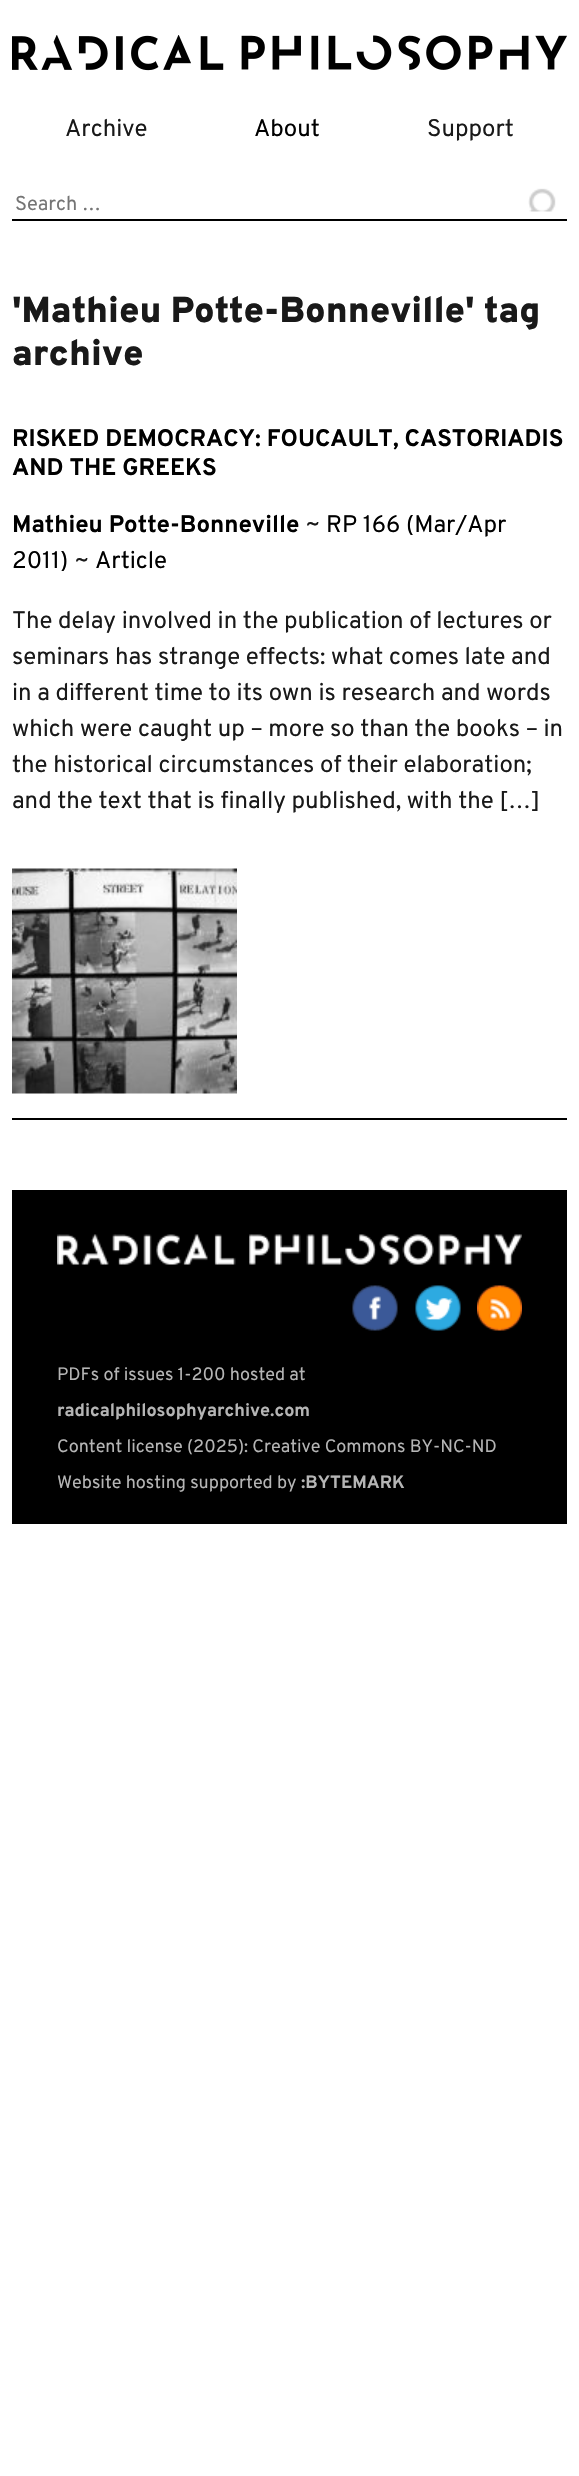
void draw(SkCanvas* canvas) {
	SkPaint paint;
	paint.setAntiAlias(true);
	canvas->clear(0xffffffff);
	canvas->drawImageRect(SkImages::DeferredFromEncodedData(SkData::MakeFromFileName("img1.png")), SkRect::MakeXYWH(12, 35, 555, 36), SkSamplingOptions());
	SkFont f1(fontMgr->matchFamilyStyle("Overpass", SkFontStyle::Normal()), 24);
	f1.setSubpixel(true);
	paint.setColor(0xff191919);
	canvas->drawString("Archive", 65, 136, f1, paint);
	paint.setColor(0xff000000);
	canvas->drawString("About", 254, 136, f1, paint);
	paint.setColor(0xff191919);
	canvas->drawString("Support", 427, 136, f1, paint);
	paint.setColor(0xff000000);
	canvas->drawRect(SkRect::MakeXYWH(12, 219, 555, 2), paint);
	SkFont f2(fontMgr->matchFamilyStyle("Overpass", SkFontStyle::Normal()), 20);
	f2.setSubpixel(true);
	paint.setColor(0xff757575);
	canvas->drawString("Search …", 15, 210, f2, paint);
	canvas->drawImageRect(SkImages::DeferredFromEncodedData(SkData::MakeFromFileName("img2.png")), SkRect::MakeXYWH(528, 188, 28, 24), SkSamplingOptions());
	SkFont f3(fontMgr->matchFamilyStyle("Overpass", SkFontStyle(900, SkFontStyle::kNormal_Width, SkFontStyle::kUpright_Slant)), 36);
	f3.setSubpixel(true);
	paint.setColor(0xff191919);
	canvas->drawString("'Mathieu Potte-Bonneville' tag", 12, 322, f3, paint);
	canvas->drawString("archive", 12, 365, f3, paint);
	paint.setColor(0xff000000);
	canvas->drawRect(SkRect::MakeXYWH(12, 1118, 555, 2), paint);
	SkFont f4(fontMgr->matchFamilyStyle("Overpass", SkFontStyle::Bold()), 24);
	f4.setSubpixel(true);
	canvas->drawString("RISKED DEMOCRACY: FOUCAULT, CASTORIADIS", 12, 446, f4, paint);
	canvas->drawString("AND THE GREEKS", 12, 475, f4, paint);
	canvas->drawString("Mathieu Potte-Bonneville", 12, 532, f4, paint);
	paint.setColor(0xff191919);
	canvas->drawString("~", 305, 532, f1, paint);
	paint.setColor(0xff000000);
	canvas->drawString("RP 166 (Mar/Apr", 326, 532, f1, paint);
	canvas->drawString("2011)", 12, 568, f1, paint);
	paint.setColor(0xff191919);
	canvas->drawString("~", 74, 568, f1, paint);
	paint.setColor(0xff000000);
	canvas->drawString("Article", 95, 568, f1, paint);
	paint.setColor(0xff191919);
	canvas->drawString("The delay involved in the publication of lectures or", 12, 628, f1, paint);
	canvas->drawString("seminars has strange effects: what comes late and", 12, 664, f1, paint);
	canvas->drawString("in a different time to its own is research and words", 12, 700, f1, paint);
	canvas->drawString("which were caught up – more so than the books – in", 12, 736, f1, paint);
	canvas->drawString("the historical circumstances of their elaboration;", 12, 772, f1, paint);
	canvas->drawString("and the text that is finally published, with the […]", 12, 808, f1, paint);
	canvas->drawImageRect(SkImages::DeferredFromEncodedData(SkData::MakeFromFileName("img3.png")), SkRect::MakeXYWH(12, 868, 225, 226), SkSamplingOptions());
	paint.setColor(0xff000000);
	canvas->drawRect(SkRect::MakeXYWH(12, 1190, 555, 334), paint);
	canvas->drawImageRect(SkImages::DeferredFromEncodedData(SkData::MakeFromFileName("img4.png")), SkRect::MakeXYWH(57, 1234, 465, 31), SkSamplingOptions());
	canvas->drawImageRect(SkImages::DeferredFromEncodedData(SkData::MakeFromFileName("img5.png")), SkRect::MakeXYWH(352, 1285, 46, 46), SkSamplingOptions());
	canvas->drawImageRect(SkImages::DeferredFromEncodedData(SkData::MakeFromFileName("img6.png")), SkRect::MakeXYWH(415, 1285, 46, 46), SkSamplingOptions());
	canvas->drawImageRect(SkImages::DeferredFromEncodedData(SkData::MakeFromFileName("img7.png")), SkRect::MakeXYWH(477, 1285, 45, 46), SkSamplingOptions());
	SkFont f5(fontMgr->matchFamilyStyle("Overpass", SkFontStyle::Normal()), 18);
	f5.setSubpixel(true);
	paint.setColor(0xffb5b5b5);
	canvas->drawString("PDFs of issues 1-200 hosted at", 57, 1380, f5, paint);
	SkFont f6(fontMgr->matchFamilyStyle("Overpass", SkFontStyle::Bold()), 18);
	f6.setSubpixel(true);
	canvas->drawString("radicalphilosophyarchive.com", 57, 1416, f6, paint);
	canvas->drawString("Content license (2025): Creative Commons BY-NC-ND", 57, 1452, f5, paint);
	canvas->drawString("Website hosting supported by", 57, 1488, f5, paint);
	canvas->drawString(":BYTEMARK", 301, 1488, f6, paint);
}
